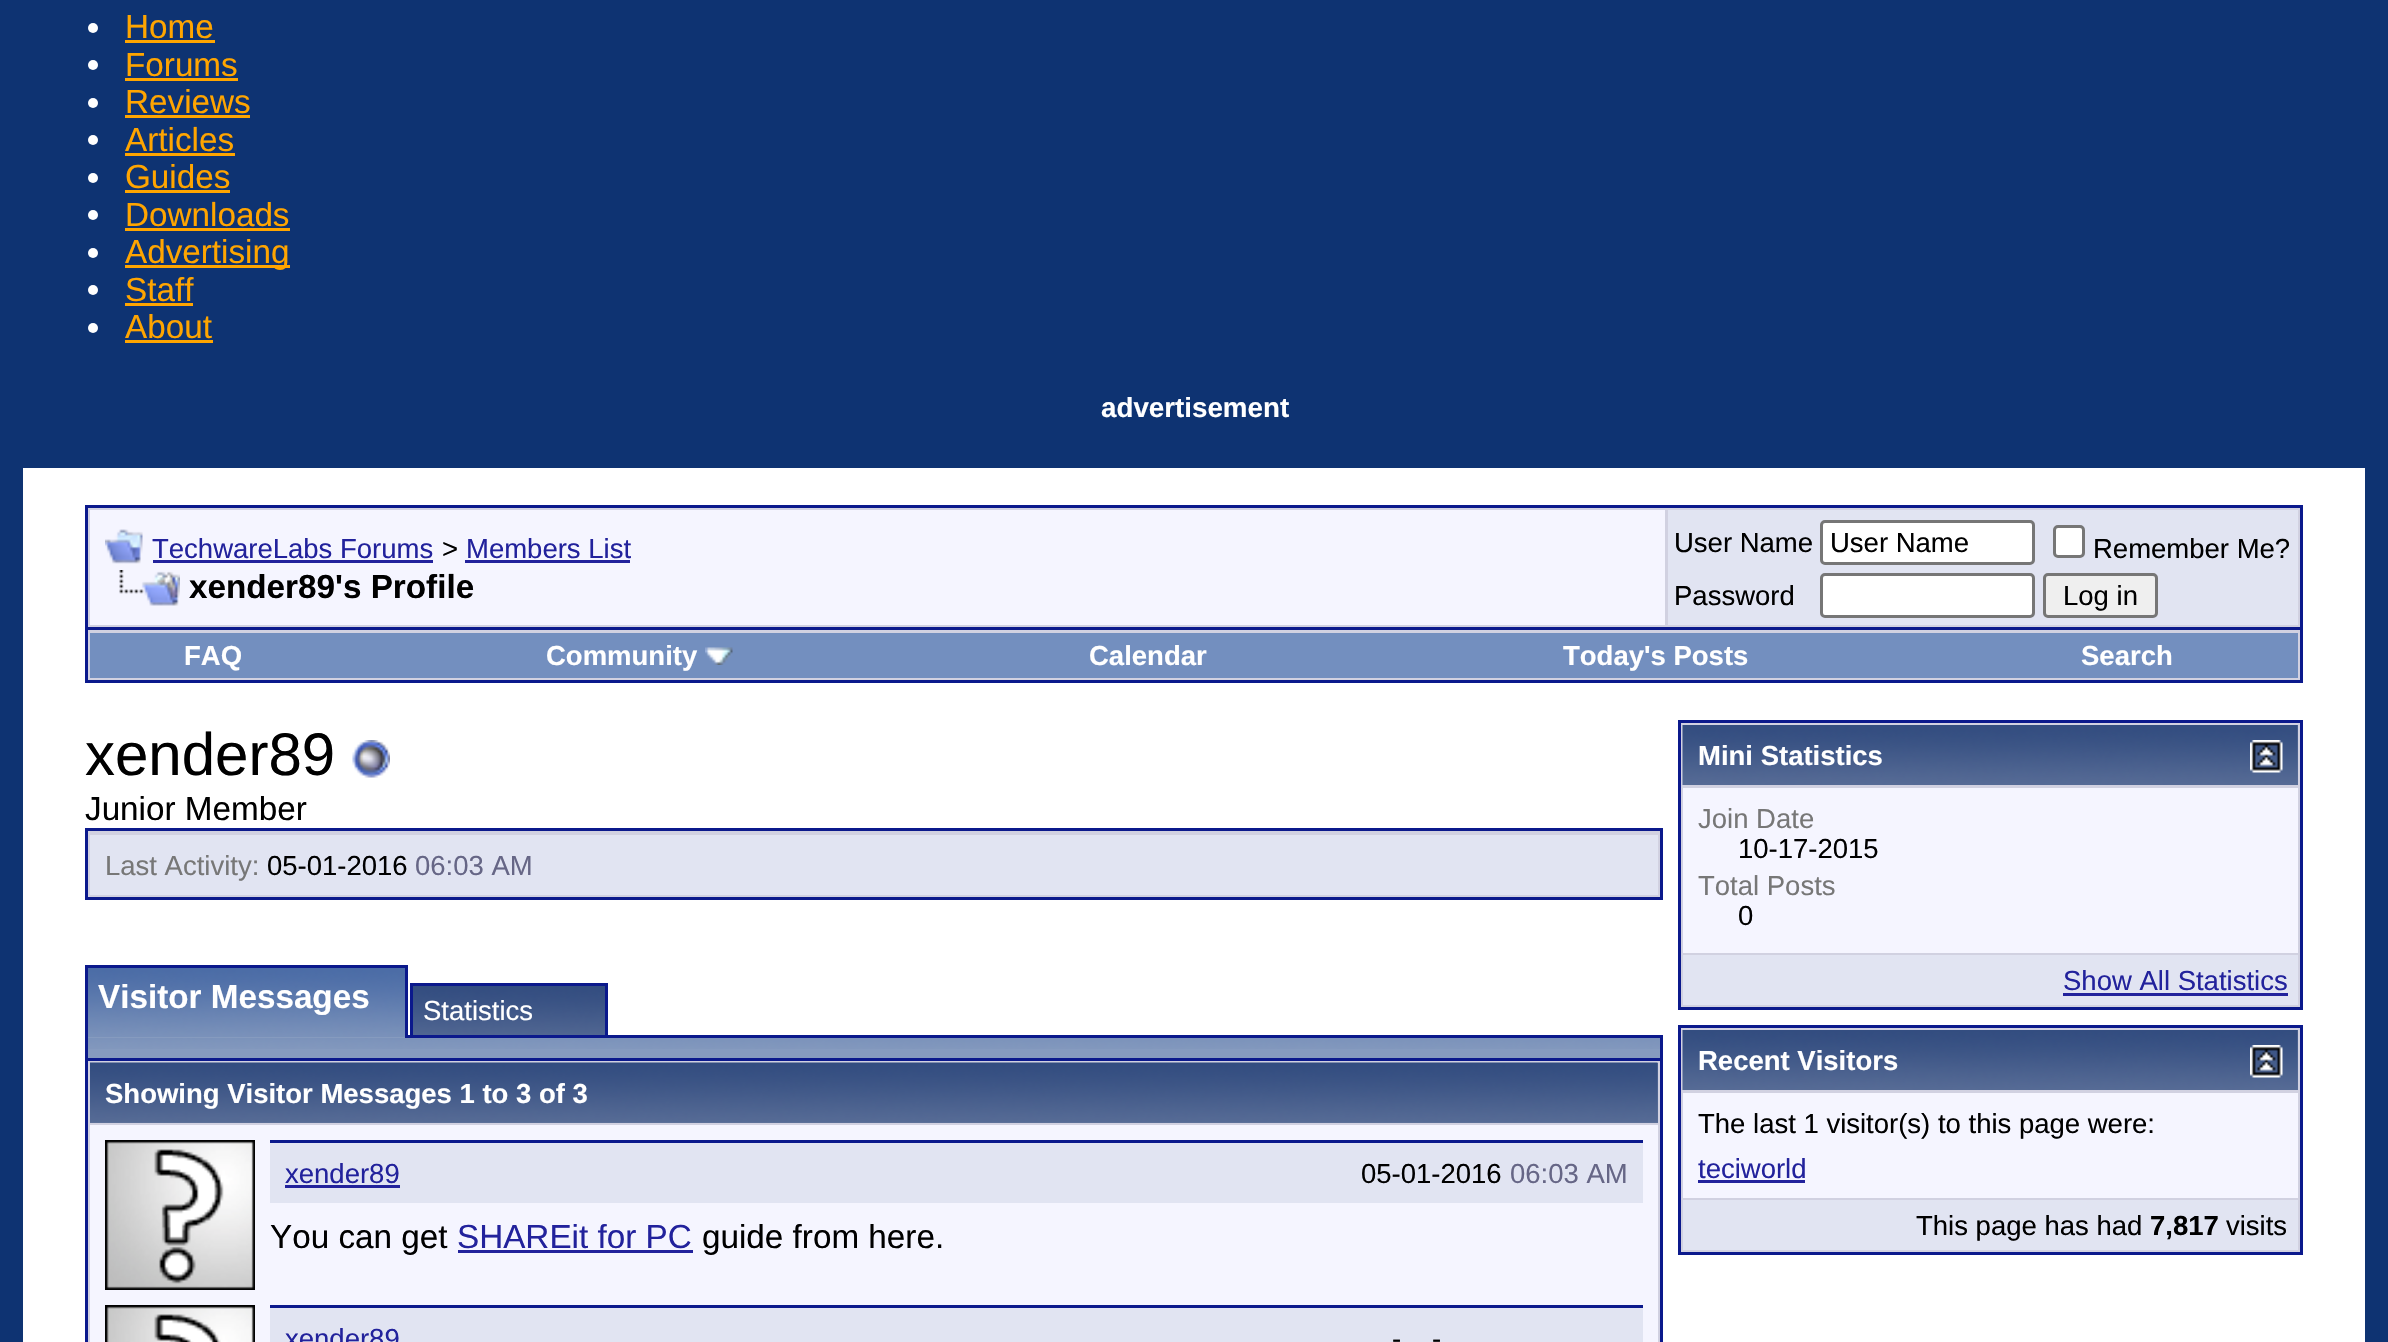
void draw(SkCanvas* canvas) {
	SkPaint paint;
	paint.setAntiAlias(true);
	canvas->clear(0xff0e3372);
	paint.setColor(0xffffffff);
	canvas->drawCircle(93, 28, 5, paint);
	SkFont f1(fontMgr->matchFamilyStyle("Liberation Sans", SkFontStyle::Normal()), 33.25);
	f1.setSubpixel(true);
	paint.setColor(0xffffa500);
	canvas->drawString("Home", 125, 38, f1, paint);
	canvas->drawRect(SkRect::MakeXYWH(125, 40, 90, 3), paint);
	paint.setColor(0xffffffff);
	canvas->drawCircle(93, 65, 5, paint);
	paint.setColor(0xffffa500);
	canvas->drawString("Forums", 125, 76, f1, paint);
	canvas->drawRect(SkRect::MakeXYWH(125, 78, 113, 3), paint);
	paint.setColor(0xffffffff);
	canvas->drawCircle(93, 103, 5, paint);
	paint.setColor(0xffffa500);
	canvas->drawString("Reviews", 125, 113, f1, paint);
	canvas->drawRect(SkRect::MakeXYWH(125, 115, 125, 3), paint);
	paint.setColor(0xffffffff);
	canvas->drawCircle(93, 140, 5, paint);
	paint.setColor(0xffffa500);
	canvas->drawString("Articles", 125, 151, f1, paint);
	canvas->drawRect(SkRect::MakeXYWH(125, 153, 110, 3), paint);
	paint.setColor(0xffffffff);
	canvas->drawCircle(93, 178, 5, paint);
	paint.setColor(0xffffa500);
	canvas->drawString("Guides", 125, 188, f1, paint);
	canvas->drawRect(SkRect::MakeXYWH(125, 190, 105, 3), paint);
	paint.setColor(0xffffffff);
	canvas->drawCircle(93, 215, 5, paint);
	paint.setColor(0xffffa500);
	canvas->drawString("Downloads", 125, 226, f1, paint);
	canvas->drawRect(SkRect::MakeXYWH(125, 228, 165, 3), paint);
	paint.setColor(0xffffffff);
	canvas->drawCircle(93, 253, 5, paint);
	paint.setColor(0xffffa500);
	canvas->drawRect(SkRect::MakeXYWH(125, 265, 165, 3), paint);
	canvas->drawString("Advertising", 125, 263, f1, paint);
	paint.setColor(0xffffffff);
	canvas->drawCircle(93, 290, 5, paint);
	paint.setColor(0xffffa500);
	canvas->drawString("Staff", 125, 301, f1, paint);
	canvas->drawRect(SkRect::MakeXYWH(125, 303, 68, 3), paint);
	paint.setColor(0xffffffff);
	canvas->drawCircle(93, 328, 5, paint);
	paint.setColor(0xffffa500);
	canvas->drawString("About", 125, 338, f1, paint);
	canvas->drawRect(SkRect::MakeXYWH(125, 340, 88, 3), paint);
	SkFont f2(fontMgr->matchFamilyStyle("Liberation Sans", SkFontStyle::Bold()), 27.75);
	f2.setSubpixel(true);
	paint.setColor(0xffffffff);
	canvas->drawString("advertisement", 1101, 417, f2, paint);
	canvas->drawRect(SkRect::MakeXYWH(23, 468, 2342, 874), paint);
	paint.setColor(0xffd1d1e1);
	canvas->drawRect(SkRect::MakeXYWH(86.5, 506.5, 2215, 122), paint);
	paint.setStroke(true);
	paint.setStrokeWidth(3);
	paint.setColor(0xff0b198c);
	canvas->drawRect(SkRect::MakeXYWH(86.5, 506.5, 2215, 122), paint);
	paint.setStroke(false);
	paint.setColor(0xfff5f5ff);
	canvas->drawRect(SkRect::MakeXYWH(90, 510, 1575, 115), paint);
	canvas->drawImageRect(SkImages::DeferredFromEncodedData(SkData::MakeFromFileName("img1.png")), SkRect::MakeXYWH(105, 529, 38, 35), SkSamplingOptions());
	SkFont f3(fontMgr->matchFamilyStyle("Liberation Sans", SkFontStyle::Normal()), 27.5);
	f3.setSubpixel(true);
	paint.setColor(0xff22229c);
	canvas->drawString("TechwareLabs Forums", 152, 558, f3, paint);
	canvas->drawRect(SkRect::MakeXYWH(153, 560, 280, 3), paint);
	paint.setColor(0xff000000);
	canvas->drawString(">", 442, 558, f3, paint);
	paint.setColor(0xff22229c);
	canvas->drawString("Members List", 466, 558, f3, paint);
	canvas->drawRect(SkRect::MakeXYWH(465, 560, 165, 3), paint);
	canvas->drawImageRect(SkImages::DeferredFromEncodedData(SkData::MakeFromFileName("img2.png")), SkRect::MakeXYWH(119, 570, 61, 36), SkSamplingOptions());
	SkFont f4(fontMgr->matchFamilyStyle("Liberation Sans", SkFontStyle::Bold()), 33.25);
	f4.setSubpixel(true);
	paint.setColor(0xff000000);
	canvas->drawString("xender89's Profile", 189, 598, f4, paint);
	paint.setColor(0xffe1e4f2);
	canvas->drawRect(SkRect::MakeXYWH(1668, 510, 630, 115), paint);
	paint.setColor(0xff000000);
	canvas->drawString("User Name", 1674, 552, f3, paint);
	paint.setColor(0xffffffff);
	canvas->drawRoundRect(SkRect::MakeXYWH(1821.5, 521.5, 212, 42), 3.5, 3.5, paint);
	paint.setStroke(true);
	paint.setColor(0xff767676);
	canvas->drawRoundRect(SkRect::MakeXYWH(1821.5, 521.5, 212, 42), 3.5, 3.5, paint);
	paint.setStroke(false);
	paint.setColor(0xff000000);
	canvas->drawString("User Name", 1830, 552, f3, paint);
	paint.setColor(0xffffffff);
	canvas->drawRoundRect(SkRect::MakeXYWH(2054.5, 526.5, 29, 30), 3.5, 3.5, paint);
	paint.setStroke(true);
	paint.setColor(0xff767676);
	canvas->drawRoundRect(SkRect::MakeXYWH(2054.5, 526.5, 29, 30), 3.5, 3.5, paint);
	paint.setStroke(false);
	paint.setColor(0xff000000);
	canvas->drawString("Remember Me?", 2093, 558, f3, paint);
	canvas->drawString("Password", 1674, 605, f3, paint);
	paint.setColor(0xffffffff);
	canvas->drawRoundRect(SkRect::MakeXYWH(1821.5, 574.5, 212, 42), 3.5, 3.5, paint);
	paint.setStroke(true);
	paint.setColor(0xff767676);
	canvas->drawRoundRect(SkRect::MakeXYWH(1821.5, 574.5, 212, 42), 3.5, 3.5, paint);
	paint.setStroke(false);
	paint.setColor(0xffefefef);
	canvas->drawRoundRect(SkRect::MakeXYWH(2044.5, 574.5, 112, 42), 3.5, 3.5, paint);
	paint.setStroke(true);
	paint.setColor(0xff767676);
	canvas->drawRoundRect(SkRect::MakeXYWH(2044.5, 574.5, 112, 42), 3.5, 3.5, paint);
	paint.setStroke(false);
	paint.setColor(0xff000000);
	canvas->drawString("Log in", 2063, 605, f3, paint);
	paint.setColor(0xffd1d1e1);
	canvas->drawRect(SkRect::MakeXYWH(88, 630, 2212, 50), paint);
	paint.setColor(0xff0b198c);
	canvas->drawRect(SkRect::MakeXYWH(2300, 630, 3, 53), paint);
	canvas->drawRect(SkRect::MakeXYWH(85, 680, 2218, 3), paint);
	canvas->drawRect(SkRect::MakeXYWH(85, 630, 3, 53), paint);
	paint.setColor(0xff738fbf);
	canvas->drawRect(SkRect::MakeXYWH(90, 633, 2208, 45), paint);
	SkFont f5(fontMgr->matchFamilyStyle("Liberation Sans", SkFontStyle::Bold()), 27.5);
	f5.setSubpixel(true);
	paint.setColor(0xffffffff);
	canvas->drawString("FAQ", 184, 665, f5, paint);
	canvas->drawString("Community", 546, 665, f5, paint);
	canvas->drawImageRect(SkImages::DeferredFromEncodedData(SkData::MakeFromFileName("img3.png")), SkRect::MakeXYWH(705, 647, 28, 18), SkSamplingOptions());
	canvas->drawString("Calendar", 1089, 665, f5, paint);
	canvas->drawString("Today's Posts", 1563, 665, f5, paint);
	canvas->drawString("Search", 2081, 665, f5, paint);
	SkFont f6(fontMgr->matchFamilyStyle("Liberation Sans", SkFontStyle::Normal()), 60);
	f6.setSubpixel(true);
	paint.setColor(0xff000000);
	canvas->drawString("xender89", 85, 775, f6, paint);
	canvas->drawImageRect(SkImages::DeferredFromEncodedData(SkData::MakeFromFileName("img4.png")), SkRect::MakeXYWH(352, 740, 38, 38), SkSamplingOptions());
	canvas->drawString("Junior Member", 85, 820, f1, paint);
	paint.setColor(0xffd1d1e1);
	canvas->drawRect(SkRect::MakeXYWH(86.5, 829.5, 1575, 69), paint);
	paint.setStroke(true);
	paint.setColor(0xff0b198c);
	canvas->drawRect(SkRect::MakeXYWH(86.5, 829.5, 1575, 69), paint);
	paint.setStroke(false);
	paint.setColor(0xffe1e4f2);
	canvas->drawRect(SkRect::MakeXYWH(90, 835, 1568, 60), paint);
	paint.setColor(0xff777777);
	canvas->drawString("Last Activity:", 105, 875, f3, paint);
	paint.setColor(0xff000000);
	canvas->drawString("05-01-2016", 267, 875, f3, paint);
	paint.setColor(0xff666686);
	canvas->drawString("06:03 AM", 415, 875, f3, paint);
	paint.setColor(0xff869bbf);
	canvas->drawRect(SkRect::MakeXYWH(88, 1037, 317, 1), paint);
	canvas->drawImageRect(SkImages::DeferredFromEncodedData(SkData::MakeFromFileName("img5.png")), SkRect::MakeXYWH(88, 968, 317, 69), SkSamplingOptions());
	paint.setColor(0xff0b198c);
	canvas->drawRect(SkRect::MakeXYWH(85, 965, 323, 3), paint);
	canvas->drawRect(SkRect::MakeXYWH(405, 965, 3, 73), paint);
	canvas->drawRect(SkRect::MakeXYWH(85, 1035, 3, 23), paint);
	canvas->drawRect(SkRect::MakeXYWH(85, 965, 3, 73), paint);
	paint.setColor(0xffffffff);
	canvas->drawString("Visitor Messages", 98, 1008, f4, paint);
	canvas->drawImageRect(SkImages::DeferredFromEncodedData(SkData::MakeFromFileName("img6.png")), SkRect::MakeXYWH(413, 986, 192, 49), SkSamplingOptions());
	paint.setColor(0xff0b198c);
	canvas->drawRect(SkRect::MakeXYWH(408, 1035, 1255, 3), paint);
	paint.setStroke(true);
	canvas->drawRect(SkRect::MakeXYWH(411.5, 984.5, 195, 52), paint);
	paint.setStroke(false);
	paint.setColor(0xffffffff);
	canvas->drawString("Statistics", 423, 1020, f3, paint);
	paint.setColor(0xff869bbf);
	canvas->drawRect(SkRect::MakeXYWH(88, 1049, 1572, 9), paint);
	canvas->drawImageRect(SkImages::DeferredFromEncodedData(SkData::MakeFromFileName("img7.png")), SkRect::MakeXYWH(88, 1038, 1572, 11), SkSamplingOptions());
	paint.setColor(0xff0b198c);
	canvas->drawRect(SkRect::MakeXYWH(1660, 1035, 3, 23), paint);
	paint.setColor(0xffd1d1e1);
	canvas->drawRect(SkRect::MakeXYWH(86.5, 1059.5, 1575, 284), paint);
	paint.setStroke(true);
	paint.setColor(0xff0b198c);
	canvas->drawRect(SkRect::MakeXYWH(86.5, 1059.5, 1575, 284), paint);
	paint.setStroke(false);
	paint.setColor(0xff5c7099);
	canvas->drawRect(SkRect::MakeXYWH(90, 1063, 1568, 60), paint);
	canvas->drawImageRect(SkImages::DeferredFromEncodedData(SkData::MakeFromFileName("img8.png")), SkRect::MakeXYWH(90, 1062, 1568, 60), SkSamplingOptions());
	paint.setColor(0xffffffff);
	canvas->drawString("Showing Visitor Messages 1 to 3 of 3", 105, 1103, f5, paint);
	paint.setColor(0xfff5f5ff);
	canvas->drawRect(SkRect::MakeXYWH(90, 1125, 1568, 217), paint);
	canvas->drawImageRect(SkImages::DeferredFromEncodedData(SkData::MakeFromFileName("img9.png")), SkRect::MakeXYWH(105, 1140, 150, 150), SkSamplingOptions());
	paint.setColor(0xff0b198c);
	canvas->drawRect(SkRect::MakeXYWH(270, 1140, 1373, 3), paint);
	paint.setColor(0xffe1e4f2);
	canvas->drawRect(SkRect::MakeXYWH(270, 1143, 1373, 60), paint);
	paint.setColor(0xff22229c);
	canvas->drawString("xender89", 285, 1183, f3, paint);
	canvas->drawRect(SkRect::MakeXYWH(285, 1185, 115, 3), paint);
	paint.setColor(0xff000000);
	canvas->drawString("05-01-2016", 1361, 1183, f3, paint);
	paint.setColor(0xff666686);
	canvas->drawString("06:03 AM", 1510, 1183, f3, paint);
	paint.setColor(0xff000000);
	canvas->drawString("You can get", 270, 1248, f1, paint);
	paint.setColor(0xff22229c);
	canvas->drawString("SHAREit for PC", 457, 1248, f1, paint);
	canvas->drawRect(SkRect::MakeXYWH(458, 1250, 235, 3), paint);
	paint.setColor(0xff000000);
	canvas->drawString("guide from here.", 702, 1248, f1, paint);
	canvas->drawImageRect(SkImages::DeferredFromEncodedData(SkData::MakeFromFileName("img10.png")), SkRect::MakeXYWH(105, 1305, 150, 37), SkSamplingOptions());
	paint.setColor(0xff0b198c);
	canvas->drawRect(SkRect::MakeXYWH(270, 1305, 1373, 3), paint);
	paint.setColor(0xffe1e4f2);
	canvas->drawRect(SkRect::MakeXYWH(270, 1308, 1373, 34), paint);
	paint.setColor(0xff22229c);
	canvas->drawString("xender89", 285, 1348, f3, paint);
	paint.setColor(0xff000000);
	canvas->drawString("-", 1392, 1348, f3, paint);
	canvas->drawString("-", 1432, 1348, f3, paint);
	paint.setColor(0xffd1d1e1);
	canvas->drawRect(SkRect::MakeXYWH(1679.5, 721.5, 622, 287), paint);
	paint.setStroke(true);
	paint.setColor(0xff0b198c);
	canvas->drawRect(SkRect::MakeXYWH(1679.5, 721.5, 622, 287), paint);
	paint.setStroke(false);
	paint.setColor(0xff5c7099);
	canvas->drawRect(SkRect::MakeXYWH(2297, 725, 1, 60), paint);
	canvas->drawImageRect(SkImages::DeferredFromEncodedData(SkData::MakeFromFileName("img11.png")), SkRect::MakeXYWH(1682, 725, 616, 60), SkSamplingOptions());
	paint.setColor(0xffffffff);
	canvas->drawString("Mini Statistics", 1698, 765, f5, paint);
	canvas->drawImageRect(SkImages::DeferredFromEncodedData(SkData::MakeFromFileName("img12.png")), SkRect::MakeXYWH(2250, 740, 33, 33), SkSamplingOptions());
	paint.setColor(0xfff5f5ff);
	canvas->drawRect(SkRect::MakeXYWH(1683, 788, 615, 165), paint);
	paint.setColor(0xff777777);
	canvas->drawString("Join Date", 1698, 828, f3, paint);
	paint.setColor(0xff000000);
	canvas->drawString("10-17-2015", 1738, 858, f3, paint);
	paint.setColor(0xff777777);
	canvas->drawString("Total Posts", 1698, 895, f3, paint);
	paint.setColor(0xff000000);
	canvas->drawString("0", 1738, 925, f3, paint);
	paint.setColor(0xffe1e4f2);
	canvas->drawRect(SkRect::MakeXYWH(1683, 955, 615, 50), paint);
	paint.setColor(0xff22229c);
	canvas->drawString("Show All Statistics", 2063, 990, f3, paint);
	canvas->drawRect(SkRect::MakeXYWH(2063, 993, 225, 3), paint);
	paint.setColor(0xffd1d1e1);
	canvas->drawRect(SkRect::MakeXYWH(1679.5, 1026.5, 622, 227), paint);
	paint.setStroke(true);
	paint.setColor(0xff0b198c);
	canvas->drawRect(SkRect::MakeXYWH(1679.5, 1026.5, 622, 227), paint);
	paint.setStroke(false);
	paint.setColor(0xff5c7099);
	canvas->drawRect(SkRect::MakeXYWH(2297, 1030, 1, 60), paint);
	canvas->drawImageRect(SkImages::DeferredFromEncodedData(SkData::MakeFromFileName("img13.png")), SkRect::MakeXYWH(1682, 1030, 616, 60), SkSamplingOptions());
	paint.setColor(0xffffffff);
	canvas->drawString("Recent Visitors", 1698, 1070, f5, paint);
	canvas->drawImageRect(SkImages::DeferredFromEncodedData(SkData::MakeFromFileName("img14.png")), SkRect::MakeXYWH(2250, 1045, 33, 33), SkSamplingOptions());
	paint.setColor(0xfff5f5ff);
	canvas->drawRect(SkRect::MakeXYWH(1683, 1093, 615, 105), paint);
	paint.setColor(0xff000000);
	canvas->drawString("The last 1 visitor(s) to this page were:", 1698, 1133, f3, paint);
	paint.setColor(0xff22229c);
	canvas->drawString("teciworld", 1698, 1178, f3, paint);
	canvas->drawRect(SkRect::MakeXYWH(1698, 1180, 107, 3), paint);
	paint.setColor(0xffe1e4f2);
	canvas->drawRect(SkRect::MakeXYWH(1683, 1200, 615, 50), paint);
	paint.setColor(0xff000000);
	canvas->drawString("This page has had", 1916, 1235, f3, paint);
	canvas->drawString("7,817", 2150, 1235, f5, paint);
	canvas->drawString("visits", 2226, 1235, f3, paint);
}
